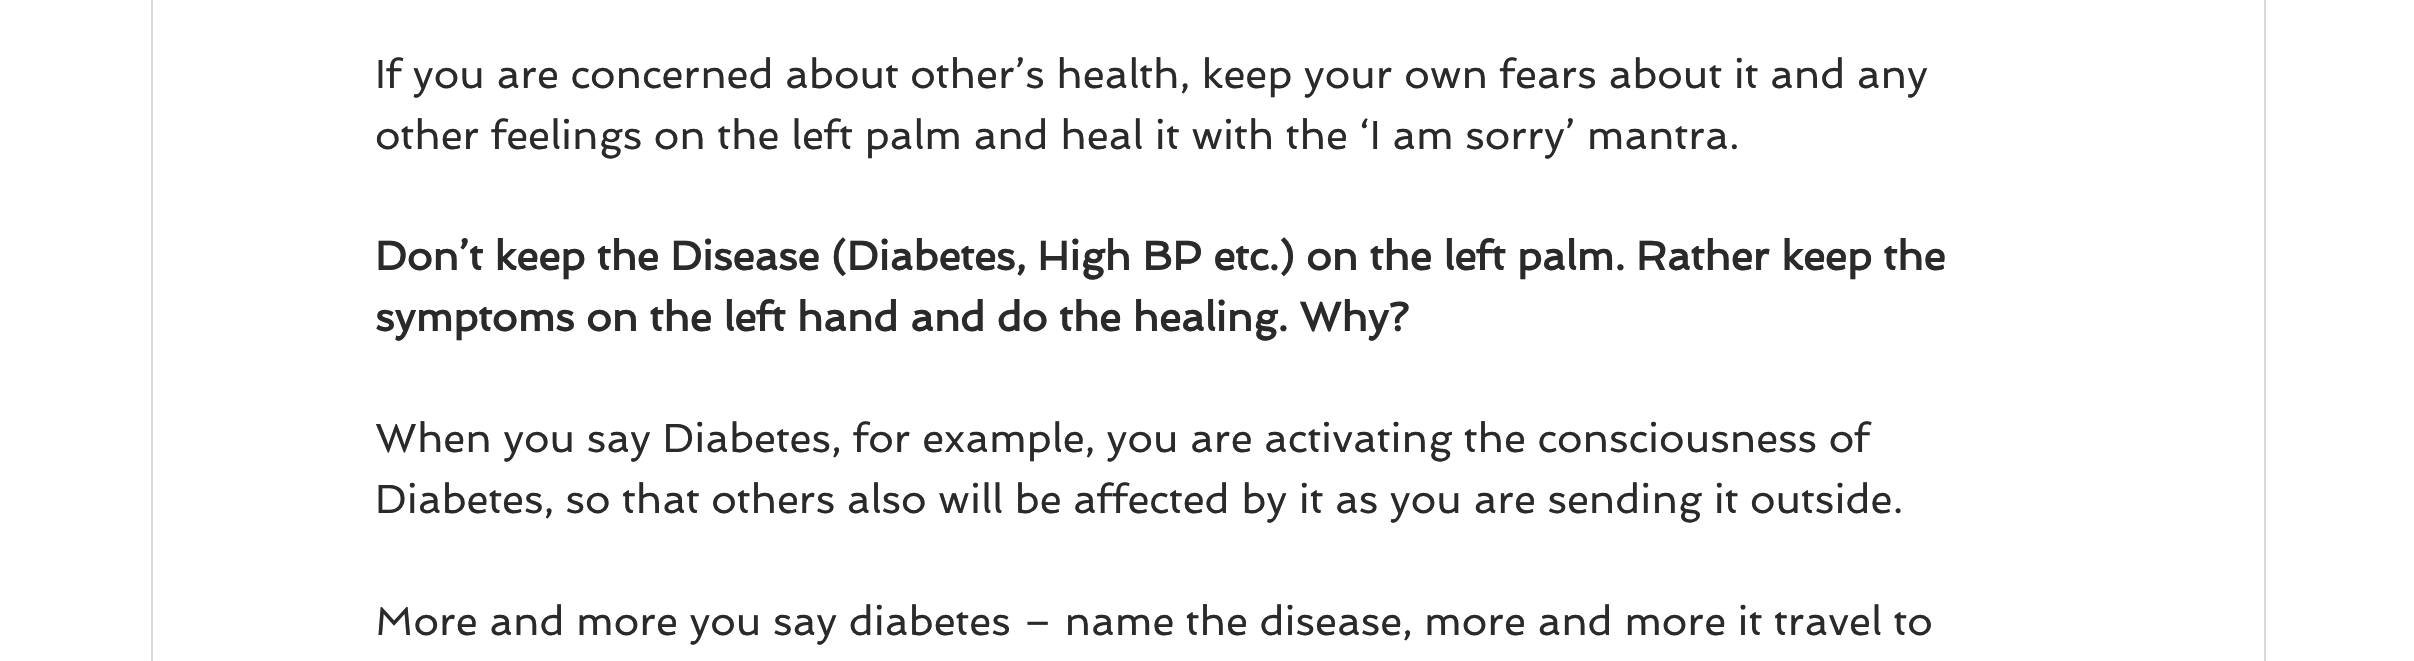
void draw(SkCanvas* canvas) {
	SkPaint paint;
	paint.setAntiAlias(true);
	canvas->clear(0xffffffff);
	paint.setStroke(true);
	paint.setStrokeWidth(2);
	paint.setColor(0xffd9d9d9);
	canvas->drawRect(SkRect::MakeXYWH(152, -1, 2113, 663), paint);
	SkFont f1(fontMgr->matchFamilyStyle("Spinnaker", SkFontStyle::Normal()), 40.5);
	f1.setSubpixel(true);
	paint.setStroke(false);
	paint.setColor(0xff2a2a2a);
	canvas->drawString("If you are concerned about other’s health, keep your own fears about it and any", 375, 88, f1, paint);
	canvas->drawString("other feelings on the left palm and heal it with the ‘I am sorry’ mantra.", 375, 149, f1, paint);
	SkFont f2(fontMgr->matchFamilyStyle("Spinnaker", SkFontStyle::Bold()), 40.5);
	f2.setSubpixel(true);
	canvas->drawString("Don’t keep the Disease (Diabetes, High BP etc.) on the left palm. Rather keep the", 375, 270, f2, paint);
	canvas->drawString("symptoms on the left hand and do the healing. Why?", 375, 331, f2, paint);
	canvas->drawString("When you say Diabetes, for example, you are activating the consciousness of", 375, 452, f1, paint);
	canvas->drawString("Diabetes, so that others also will be affected by it as you are sending it outside.", 375, 513, f1, paint);
	canvas->drawString("More and more you say diabetes – name the disease, more and more it travel to", 375, 635, f1, paint);
}
